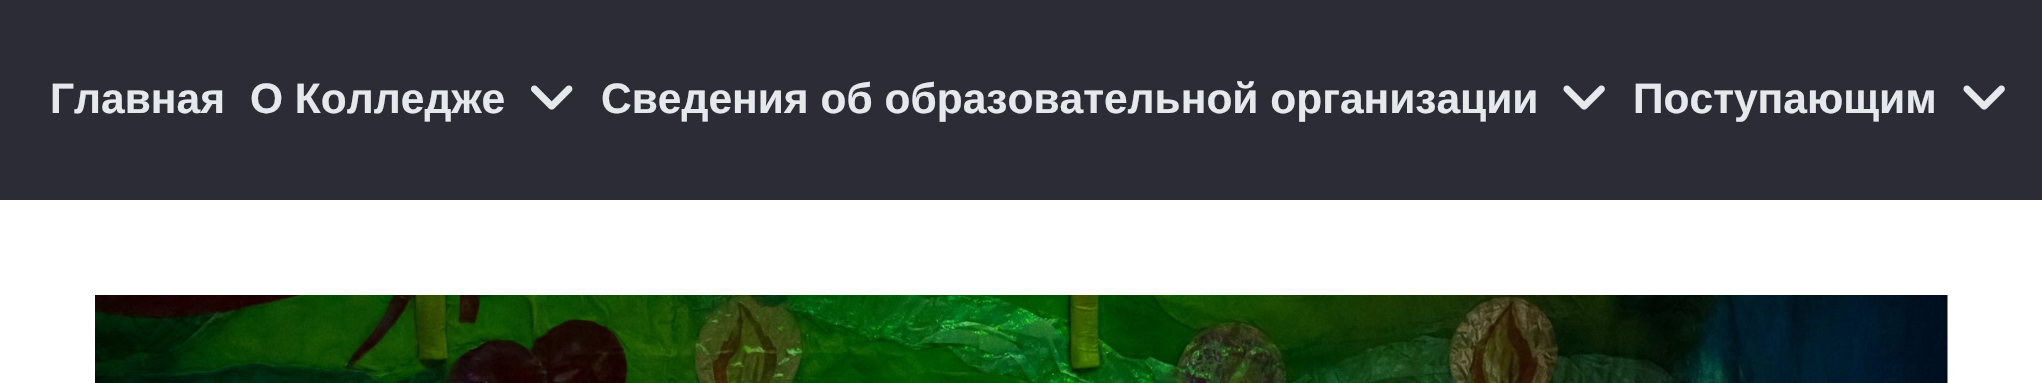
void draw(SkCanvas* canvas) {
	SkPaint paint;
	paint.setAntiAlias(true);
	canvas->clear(0xffffffff);
	paint.setColor(0xff2b2c36);
	canvas->drawRect(SkRect::MakeXYWH(0, 0, 2042, 200), paint);
	SkFont f1(fontMgr->matchFamilyStyle("Liberation Sans", SkFontStyle::Bold()), 42.5);
	f1.setSubpixel(true);
	paint.setColor(0xffe6e9eb);
	canvas->drawString("Главная", 50, 113, f1, paint);
	canvas->drawString("О Колледже", 250, 113, f1, paint);
	canvas->drawImageRect(SkImages::DeferredFromEncodedData(SkData::MakeFromFileName("img1.png")), SkRect::MakeXYWH(531, 85, 42, 25), SkSamplingOptions());
	canvas->drawString("Cведения об образовательной организации", 601, 113, f1, paint);
	canvas->drawImageRect(SkImages::DeferredFromEncodedData(SkData::MakeFromFileName("img2.png")), SkRect::MakeXYWH(1563, 85, 42, 25), SkSamplingOptions());
	canvas->drawString("Поступающим", 1633, 113, f1, paint);
	canvas->drawImageRect(SkImages::DeferredFromEncodedData(SkData::MakeFromFileName("img2.png")), SkRect::MakeXYWH(1963, 85, 42, 25), SkSamplingOptions());
	canvas->drawImageRect(SkImages::DeferredFromEncodedData(SkData::MakeFromFileName("img3.png")), SkRect::MakeXYWH(95, 295, 1853, 88), SkSamplingOptions());
}
